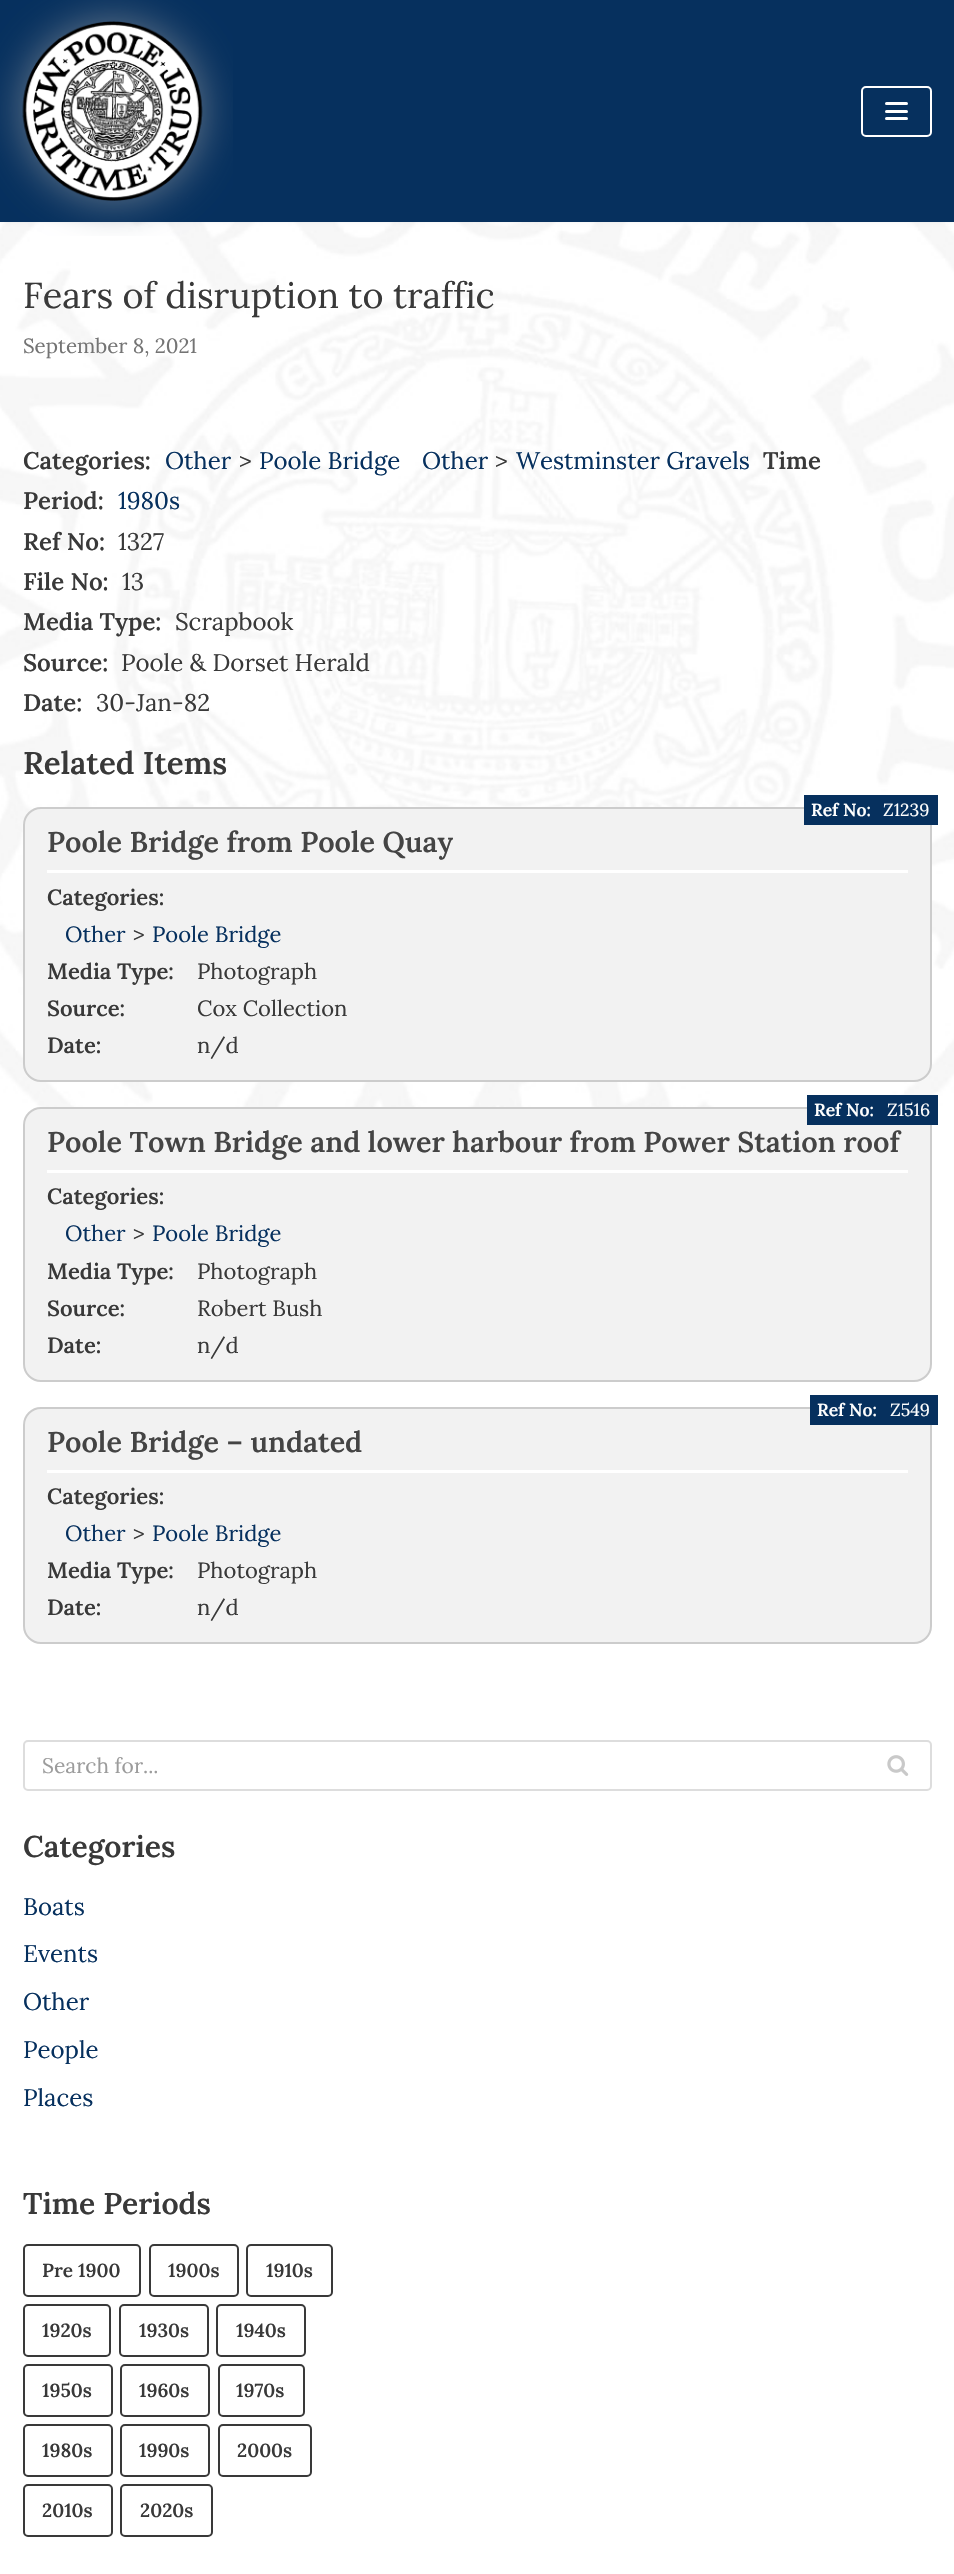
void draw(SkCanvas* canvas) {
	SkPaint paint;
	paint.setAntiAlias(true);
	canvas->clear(0xffffffff);
	canvas->drawImageRect(SkImages::DeferredFromEncodedData(SkData::MakeFromFileName("img2.png")), SkRect::MakeXYWH(0, 222, 954, 1066), SkSamplingOptions());
	paint.setColor(0x1a000000);
	paint.setMaskFilter(SkMaskFilter::MakeBlur(kNormal_SkBlurStyle, 2));
	canvas->drawRect(SkRect::MakeXYWH(0, -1, 954, 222), paint);
	paint.setMaskFilter(nullptr);
	paint.setColor(0xff06305e);
	canvas->drawRect(SkRect::MakeXYWH(0, 0, 954, 222), paint);
	canvas->drawImageRect(SkImages::DeferredFromEncodedData(SkData::MakeFromFileName("img1.png")), SkRect::MakeXYWH(0, 0, 233, 236), SkSamplingOptions());
	paint.setStroke(true);
	paint.setStrokeWidth(2);
	paint.setColor(0xffffffff);
	canvas->drawRoundRect(SkRect::MakeXYWH(862, 87, 69, 49), 4, 4, paint);
	paint.setStroke(false);
	canvas->drawRoundRect(SkRect::MakeXYWH(885, 102, 23, 3), 1.5, 1.5, paint);
	canvas->drawRoundRect(SkRect::MakeXYWH(885, 110, 23, 3), 1.5, 1.5, paint);
	canvas->drawRoundRect(SkRect::MakeXYWH(885, 117, 23, 3), 1.5, 1.5, paint);
	SkFont f1(fontMgr->matchFamilyStyle("Lora", SkFontStyle::Normal()), 36);
	f1.setSubpixel(true);
	paint.setColor(0xff393939);
	canvas->drawString("Fears of disruption to traffic", 23, 308, f1, paint);
	SkFont f2(fontMgr->matchFamilyStyle("Lora", SkFontStyle::Normal()), 20.5);
	f2.setSubpixel(true);
	paint.setColor(0xff747474);
	canvas->drawString("September 8, 2021", 23, 353, f2, paint);
	SkFont f3(fontMgr->matchFamilyStyle("Lora", SkFontStyle(600, SkFontStyle::kNormal_Width, SkFontStyle::kUpright_Slant)), 24);
	f3.setSubpixel(true);
	paint.setColor(0xff393939);
	canvas->drawString("Categories:", 23, 469, f3, paint);
	SkFont f4(fontMgr->matchFamilyStyle("Lora", SkFontStyle::Normal()), 24);
	f4.setSubpixel(true);
	paint.setColor(0xff06305e);
	canvas->drawString("Other", 165, 469, f4, paint);
	paint.setColor(0xff393939);
	canvas->drawString(">", 239, 469, f4, paint);
	paint.setColor(0xff06305e);
	canvas->drawString("Poole Bridge", 259, 469, f4, paint);
	canvas->drawString("Other", 422, 469, f4, paint);
	paint.setColor(0xff393939);
	canvas->drawString(">", 495, 469, f4, paint);
	paint.setColor(0xff06305e);
	canvas->drawString("Westminster Gravels", 516, 469, f4, paint);
	paint.setColor(0xff393939);
	canvas->drawString("Time", 763, 469, f3, paint);
	canvas->drawString("Period:", 23, 509, f3, paint);
	paint.setColor(0xff06305e);
	canvas->drawString("1980s", 118, 509, f4, paint);
	paint.setColor(0xff393939);
	canvas->drawString("Ref No:", 23, 550, f3, paint);
	canvas->drawString("1327", 118, 550, f4, paint);
	canvas->drawString("File No:", 23, 590, f3, paint);
	canvas->drawString("13", 122, 590, f4, paint);
	canvas->drawString("Media Type:", 23, 630, f3, paint);
	canvas->drawString("Scrapbook", 175, 630, f4, paint);
	canvas->drawString("Source:", 23, 671, f3, paint);
	canvas->drawString("Poole & Dorset Herald", 121, 671, f4, paint);
	canvas->drawString("Date:", 23, 711, f3, paint);
	canvas->drawString("30-Jan-82", 96, 711, f4, paint);
	SkFont f5(fontMgr->matchFamilyStyle("Lora", SkFontStyle(600, SkFontStyle::kNormal_Width, SkFontStyle::kUpright_Slant)), 31.25);
	f5.setSubpixel(true);
	canvas->drawString("Related Items", 23, 774, f5, paint);
	paint.setColor(0xfff2f2f2);
	canvas->drawRoundRect(SkRect::MakeXYWH(24, 808, 907, 273), 17, 17, paint);
	paint.setStroke(true);
	paint.setColor(0xffcccccc);
	canvas->drawRoundRect(SkRect::MakeXYWH(24, 808, 907, 273), 17, 17, paint);
	paint.setStroke(false);
	paint.setColor(0xff06305e);
	canvas->drawRect(SkRect::MakeXYWH(804, 795, 134, 30), paint);
	SkFont f6(fontMgr->matchFamilyStyle("Lora", SkFontStyle(600, SkFontStyle::kNormal_Width, SkFontStyle::kUpright_Slant)), 17.5);
	f6.setSubpixel(true);
	paint.setColor(0xffffffff);
	canvas->drawString("Ref No:", 811, 816, f6, paint);
	SkFont f7(fontMgr->matchFamilyStyle("Lora", SkFontStyle::Normal()), 17.5);
	f7.setSubpixel(true);
	canvas->drawString("Z1239", 883, 816, f7, paint);
	SkFont f8(fontMgr->matchFamilyStyle("Lora", SkFontStyle(600, SkFontStyle::kNormal_Width, SkFontStyle::kUpright_Slant)), 22);
	f8.setSubpixel(true);
	paint.setColor(0xff393939);
	canvas->drawString("Media Type:", 47, 979, f8, paint);
	SkFont f9(fontMgr->matchFamilyStyle("Lora", SkFontStyle::Normal()), 22);
	f9.setSubpixel(true);
	canvas->drawString("Photograph", 197, 979, f9, paint);
	canvas->drawString("Source:", 47, 1016, f8, paint);
	canvas->drawString("Cox Collection", 197, 1016, f9, paint);
	canvas->drawString("Date:", 47, 1053, f8, paint);
	canvas->drawString("n/d", 197, 1053, f9, paint);
	paint.setColor(0xffffffff);
	canvas->drawRect(SkRect::MakeXYWH(47, 870, 861, 3), paint);
	SkFont f10(fontMgr->matchFamilyStyle("Lora", SkFontStyle(600, SkFontStyle::kNormal_Width, SkFontStyle::kUpright_Slant)), 28.7);
	f10.setSubpixel(true);
	paint.setColor(0xff444444);
	canvas->drawString("Poole Bridge from Poole Quay", 47, 852, f10, paint);
	paint.setColor(0xff393939);
	canvas->drawString("Categories:", 47, 905, f8, paint);
	paint.setColor(0xff06305e);
	canvas->drawString("Other", 65, 942, f9, paint);
	paint.setColor(0xff393939);
	canvas->drawString(">", 133, 942, f9, paint);
	paint.setColor(0xff06305e);
	canvas->drawString("Poole Bridge", 152, 942, f9, paint);
	paint.setColor(0xfff2f2f2);
	canvas->drawRoundRect(SkRect::MakeXYWH(24, 1108, 907, 273), 17, 17, paint);
	paint.setStroke(true);
	paint.setColor(0xffcccccc);
	canvas->drawRoundRect(SkRect::MakeXYWH(24, 1108, 907, 273), 17, 17, paint);
	paint.setStroke(false);
	paint.setColor(0xff06305e);
	canvas->drawRect(SkRect::MakeXYWH(807, 1095, 131, 30), paint);
	paint.setColor(0xffffffff);
	canvas->drawString("Ref No:", 814, 1116, f6, paint);
	canvas->drawString("Z1516", 887, 1116, f7, paint);
	paint.setColor(0xff393939);
	canvas->drawString("Media Type:", 47, 1279, f8, paint);
	canvas->drawString("Photograph", 197, 1279, f9, paint);
	canvas->drawString("Source:", 47, 1316, f8, paint);
	canvas->drawString("Robert Bush", 197, 1316, f9, paint);
	canvas->drawString("Date:", 47, 1353, f8, paint);
	canvas->drawString("n/d", 197, 1353, f9, paint);
	paint.setColor(0xffffffff);
	canvas->drawRect(SkRect::MakeXYWH(47, 1170, 861, 3), paint);
	paint.setColor(0xff444444);
	canvas->drawString("Poole Town Bridge and lower harbour from Power Station roof", 47, 1152, f10, paint);
	paint.setColor(0xff393939);
	canvas->drawString("Categories:", 47, 1204, f8, paint);
	paint.setColor(0xff06305e);
	canvas->drawString("Other", 65, 1241, f9, paint);
	paint.setColor(0xff393939);
	canvas->drawString(">", 133, 1241, f9, paint);
	paint.setColor(0xff06305e);
	canvas->drawString("Poole Bridge", 152, 1241, f9, paint);
	paint.setColor(0xfff2f2f2);
	canvas->drawRoundRect(SkRect::MakeXYWH(24, 1408, 907, 235), 17, 17, paint);
	paint.setStroke(true);
	paint.setColor(0xffcccccc);
	canvas->drawRoundRect(SkRect::MakeXYWH(24, 1408, 907, 235), 17, 17, paint);
	paint.setStroke(false);
	paint.setColor(0xff06305e);
	canvas->drawRect(SkRect::MakeXYWH(810, 1395, 128, 30), paint);
	paint.setColor(0xffffffff);
	canvas->drawString("Ref No:", 817, 1416, f6, paint);
	canvas->drawString("Z549", 890, 1416, f7, paint);
	paint.setColor(0xff393939);
	canvas->drawString("Media Type:", 47, 1578, f8, paint);
	canvas->drawString("Photograph", 197, 1578, f9, paint);
	canvas->drawString("Date:", 47, 1615, f8, paint);
	canvas->drawString("n/d", 197, 1615, f9, paint);
	paint.setColor(0xffffffff);
	canvas->drawRect(SkRect::MakeXYWH(47, 1470, 861, 3), paint);
	paint.setColor(0xff444444);
	canvas->drawString("Poole Bridge – undated", 47, 1452, f10, paint);
	paint.setColor(0xff393939);
	canvas->drawString("Categories:", 47, 1504, f8, paint);
	paint.setColor(0xff06305e);
	canvas->drawString("Other", 65, 1541, f9, paint);
	paint.setColor(0xff393939);
	canvas->drawString(">", 133, 1541, f9, paint);
	paint.setColor(0xff06305e);
	canvas->drawString("Poole Bridge", 152, 1541, f9, paint);
	paint.setStroke(true);
	paint.setColor(0xffdddddd);
	canvas->drawRoundRect(SkRect::MakeXYWH(24, 1741, 907, 49), 4, 4, paint);
	SkFont f11(fontMgr->matchFamilyStyle("Lora", SkFontStyle::Normal()), 21);
	f11.setSubpixel(true);
	paint.setStroke(false);
	paint.setColor(0xff9c9c9c);
	canvas->drawString("Search for...", 42, 1773, f11, paint);
	canvas->drawImageRect(SkImages::DeferredFromEncodedData(SkData::MakeFromFileName("img3.png")), SkRect::MakeXYWH(887, 1755, 22, 21), SkSamplingOptions());
	SkFont f12(fontMgr->matchFamilyStyle("Lora", SkFontStyle(600, SkFontStyle::kNormal_Width, SkFontStyle::kUpright_Slant)), 30);
	f12.setSubpixel(true);
	paint.setColor(0xff393939);
	canvas->drawString("Categories", 23, 1857, f12, paint);
	paint.setColor(0xff06305e);
	canvas->drawString("Boats", 23, 1915, f4, paint);
	canvas->drawString("Events", 23, 1962, f4, paint);
	canvas->drawString("Other", 23, 2010, f4, paint);
	canvas->drawString("People", 23, 2058, f4, paint);
	canvas->drawString("Places", 23, 2106, f4, paint);
	paint.setColor(0xff393939);
	canvas->drawString("Time Periods", 23, 2214, f12, paint);
	paint.setStroke(true);
	canvas->drawRoundRect(SkRect::MakeXYWH(24, 2245, 116, 51), 4, 4, paint);
	SkFont f13(fontMgr->matchFamilyStyle("Lora", SkFontStyle(600, SkFontStyle::kNormal_Width, SkFontStyle::kUpright_Slant)), 19);
	f13.setSubpixel(true);
	paint.setStroke(false);
	canvas->drawString("Pre 1900", 42, 2277, f13, paint);
	paint.setStroke(true);
	canvas->drawRoundRect(SkRect::MakeXYWH(150, 2245, 88, 51), 4, 4, paint);
	paint.setStroke(false);
	canvas->drawString("1900s", 168, 2277, f13, paint);
	paint.setStroke(true);
	canvas->drawRoundRect(SkRect::MakeXYWH(247, 2245, 85, 51), 4, 4, paint);
	paint.setStroke(false);
	canvas->drawString("1910s", 266, 2277, f13, paint);
	paint.setStroke(true);
	canvas->drawRoundRect(SkRect::MakeXYWH(24, 2305, 86, 51), 4, 4, paint);
	paint.setStroke(false);
	canvas->drawString("1920s", 42, 2337, f13, paint);
	paint.setStroke(true);
	canvas->drawRoundRect(SkRect::MakeXYWH(120, 2305, 88, 51), 4, 4, paint);
	paint.setStroke(false);
	canvas->drawString("1930s", 139, 2337, f13, paint);
	paint.setStroke(true);
	canvas->drawRoundRect(SkRect::MakeXYWH(217, 2305, 88, 51), 4, 4, paint);
	paint.setStroke(false);
	canvas->drawString("1940s", 236, 2337, f13, paint);
	paint.setStroke(true);
	canvas->drawRoundRect(SkRect::MakeXYWH(24, 2365, 88, 51), 4, 4, paint);
	paint.setStroke(false);
	canvas->drawString("1950s", 42, 2397, f13, paint);
	paint.setStroke(true);
	canvas->drawRoundRect(SkRect::MakeXYWH(121, 2365, 88, 51), 4, 4, paint);
	paint.setStroke(false);
	canvas->drawString("1960s", 139, 2397, f13, paint);
	paint.setStroke(true);
	canvas->drawRoundRect(SkRect::MakeXYWH(219, 2365, 85, 51), 4, 4, paint);
	paint.setStroke(false);
	canvas->drawString("1970s", 236, 2397, f13, paint);
	paint.setStroke(true);
	canvas->drawRoundRect(SkRect::MakeXYWH(24, 2425, 88, 51), 4, 4, paint);
	paint.setStroke(false);
	canvas->drawString("1980s", 42, 2457, f13, paint);
	paint.setStroke(true);
	canvas->drawRoundRect(SkRect::MakeXYWH(121, 2425, 88, 51), 4, 4, paint);
	paint.setStroke(false);
	canvas->drawString("1990s", 139, 2457, f13, paint);
	paint.setStroke(true);
	canvas->drawRoundRect(SkRect::MakeXYWH(219, 2425, 92, 51), 4, 4, paint);
	paint.setStroke(false);
	canvas->drawString("2000s", 237, 2457, f13, paint);
	paint.setStroke(true);
	canvas->drawRoundRect(SkRect::MakeXYWH(24, 2485, 88, 51), 4, 4, paint);
	paint.setStroke(false);
	canvas->drawString("2010s", 42, 2517, f13, paint);
	paint.setStroke(true);
	canvas->drawRoundRect(SkRect::MakeXYWH(121, 2485, 91, 51), 4, 4, paint);
	paint.setStroke(false);
	canvas->drawString("2020s", 140, 2517, f13, paint);
}
